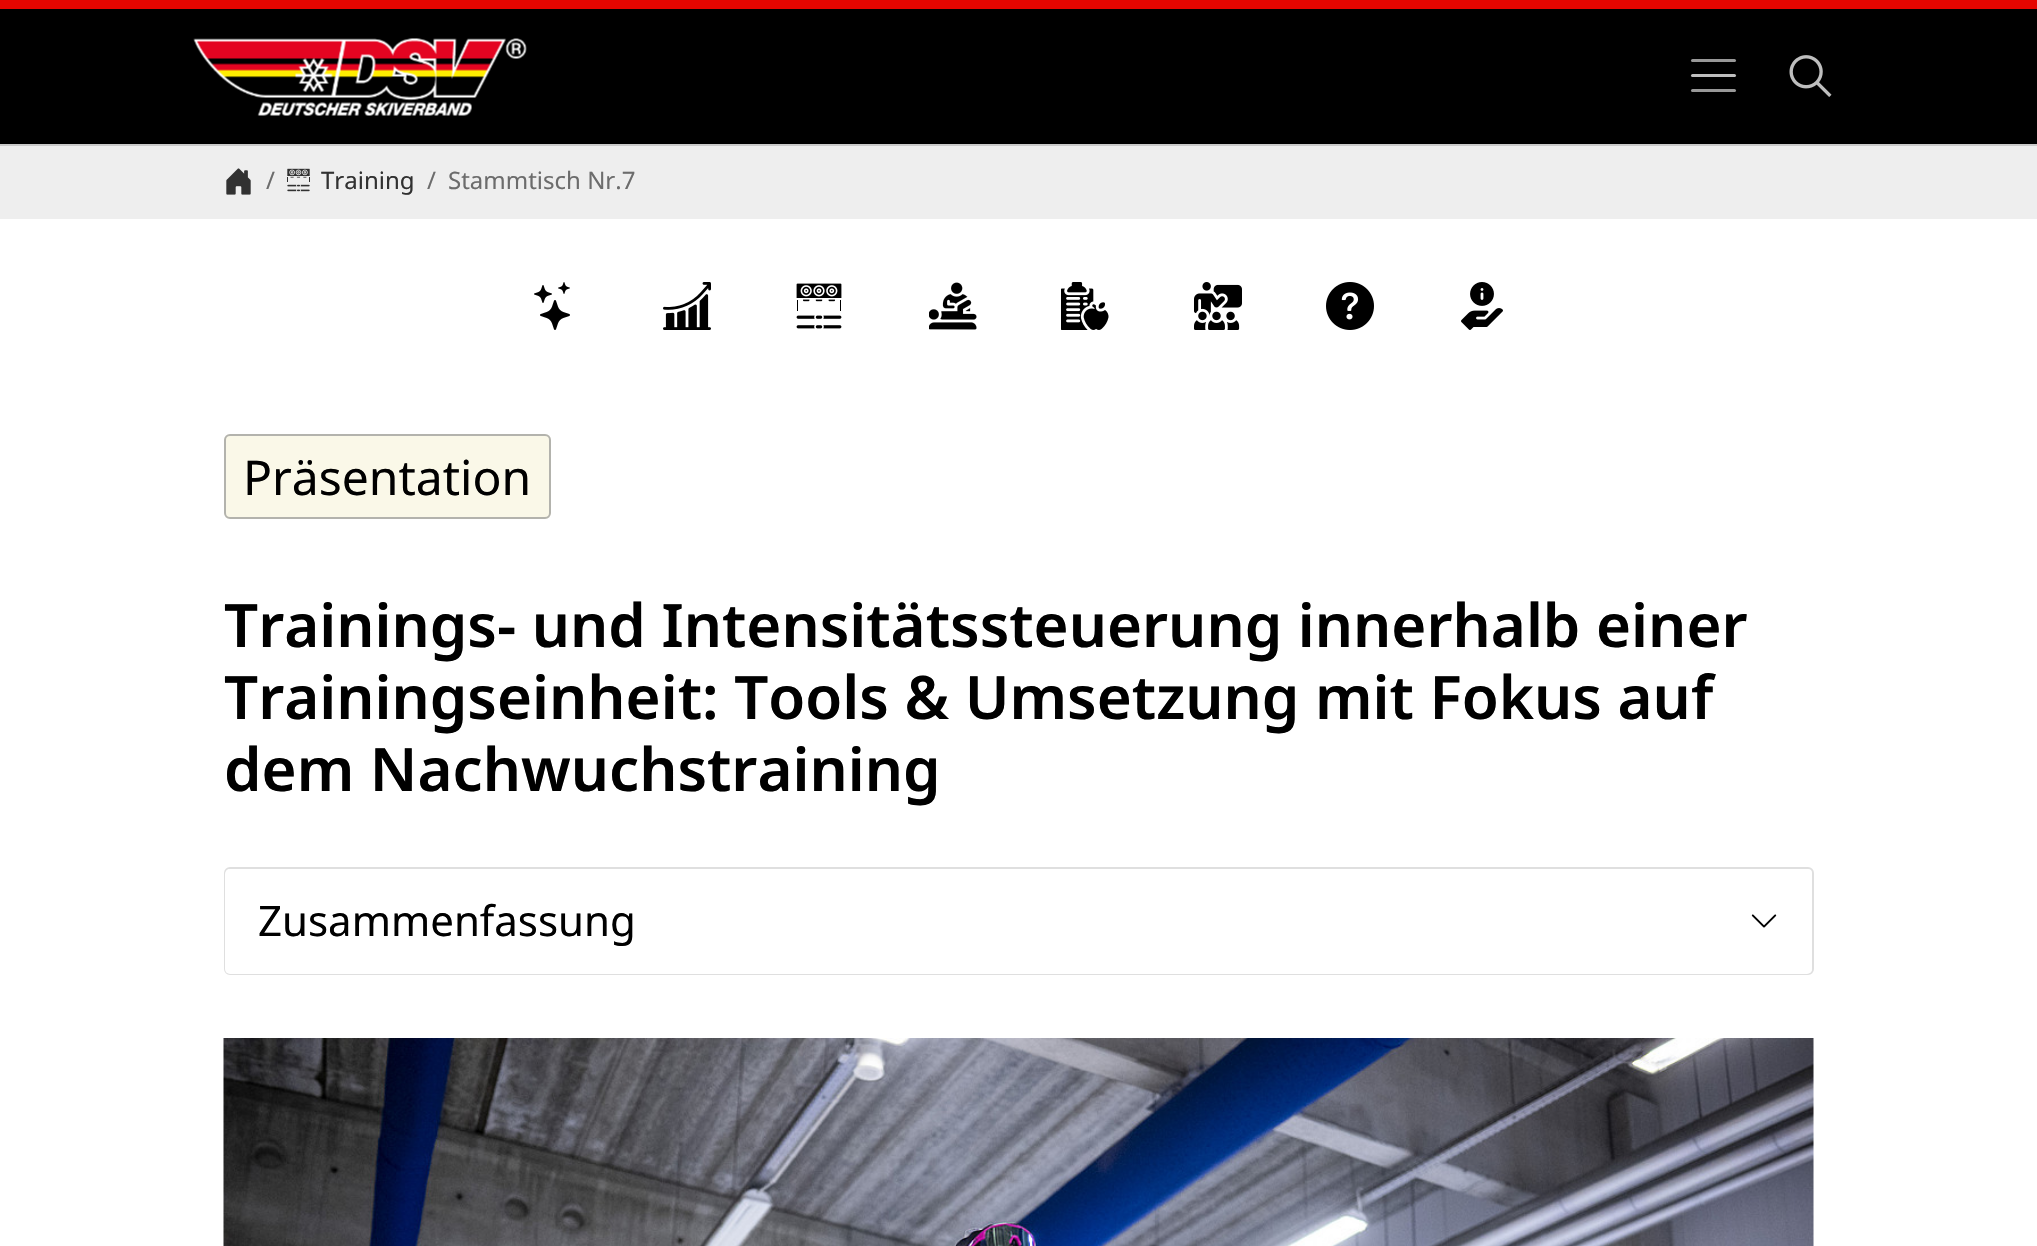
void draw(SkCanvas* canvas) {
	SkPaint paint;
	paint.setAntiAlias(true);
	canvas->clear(0xffffffff);
	paint.setColor(0xffe40500);
	canvas->drawRect(SkRect::MakeXYWH(0, 0, 2037, 9), paint);
	paint.setColor(0xffcacaca);
	canvas->drawRect(SkRect::MakeXYWH(0, 144, 2037, 2), paint);
	paint.setColor(0xff000000);
	canvas->drawRect(SkRect::MakeXYWH(0, 9, 2037, 135), paint);
	canvas->drawImageRect(SkImages::DeferredFromEncodedData(SkData::MakeFromFileName("img1.png")), SkRect::MakeXYWH(193, 38, 334, 78), SkSamplingOptions());
	paint.setColor(0xffbebebe);
	canvas->drawRoundRect(SkRect::MakeXYWH(1691, 74, 45, 3), 1.5, 1.5, paint);
	paint.setColor(0xff989898);
	canvas->drawRoundRect(SkRect::MakeXYWH(1691, 59, 45, 3), 1.5, 1.5, paint);
	canvas->drawRoundRect(SkRect::MakeXYWH(1691, 89, 45, 3), 1.5, 1.5, paint);
	canvas->drawImageRect(SkImages::DeferredFromEncodedData(SkData::MakeFromFileName("img2.png")), SkRect::MakeXYWH(1789, 55, 43, 42), SkSamplingOptions());
	paint.setColor(0xffeeeeee);
	canvas->drawRect(SkRect::MakeXYWH(0, 146, 2037, 73), paint);
	canvas->drawImageRect(SkImages::DeferredFromEncodedData(SkData::MakeFromFileName("img3.png")), SkRect::MakeXYWH(226, 168, 25, 27), SkSamplingOptions());
	SkFont f1(fontMgr->matchFamilyStyle("Noto Sans", SkFontStyle::Normal()), 24);
	f1.setSubpixel(true);
	paint.setColor(0xff6c6c6c);
	canvas->drawString("/", 266, 189, f1, paint);
	canvas->drawImageRect(SkImages::DeferredFromEncodedData(SkData::MakeFromFileName("img4.png")), SkRect::MakeXYWH(287, 168, 23, 24), SkSamplingOptions());
	paint.setColor(0xff313131);
	canvas->drawString("Training", 321, 189, f1, paint);
	paint.setColor(0xff6c6c6c);
	canvas->drawString("/", 427, 189, f1, paint);
	canvas->drawString("Stammtisch Nr.7", 448, 189, f1, paint);
	canvas->drawImageRect(SkImages::DeferredFromEncodedData(SkData::MakeFromFileName("img5.png")), SkRect::MakeXYWH(534, 282, 36, 48), SkSamplingOptions());
	canvas->drawImageRect(SkImages::DeferredFromEncodedData(SkData::MakeFromFileName("img6.png")), SkRect::MakeXYWH(663, 282, 48, 48), SkSamplingOptions());
	canvas->drawImageRect(SkImages::DeferredFromEncodedData(SkData::MakeFromFileName("img7.png")), SkRect::MakeXYWH(796, 283, 46, 46), SkSamplingOptions());
	canvas->drawImageRect(SkImages::DeferredFromEncodedData(SkData::MakeFromFileName("img8.png")), SkRect::MakeXYWH(929, 282, 48, 48), SkSamplingOptions());
	canvas->drawImageRect(SkImages::DeferredFromEncodedData(SkData::MakeFromFileName("img9.png")), SkRect::MakeXYWH(1061, 282, 48, 48), SkSamplingOptions());
	canvas->drawImageRect(SkImages::DeferredFromEncodedData(SkData::MakeFromFileName("img10.png")), SkRect::MakeXYWH(1194, 282, 48, 48), SkSamplingOptions());
	canvas->drawImageRect(SkImages::DeferredFromEncodedData(SkData::MakeFromFileName("img11.png")), SkRect::MakeXYWH(1326, 282, 48, 48), SkSamplingOptions());
	canvas->drawImageRect(SkImages::DeferredFromEncodedData(SkData::MakeFromFileName("img12.png")), SkRect::MakeXYWH(1461, 282, 42, 48), SkSamplingOptions());
	paint.setColor(0xfffaf8e8);
	canvas->drawRoundRect(SkRect::MakeXYWH(224, 434, 327, 85), 6, 6, paint);
	paint.setStroke(true);
	paint.setStrokeWidth(2);
	paint.setColor(0xa38b8b8b);
	canvas->drawRoundRect(SkRect::MakeXYWH(225, 435, 325, 83), 5, 5, paint);
	SkFont f2(fontMgr->matchFamilyStyle("Noto Sans", SkFontStyle::Normal()), 48);
	f2.setSubpixel(true);
	paint.setStroke(false);
	paint.setColor(0xff000000);
	canvas->drawString("Präsentation", 243, 495, f2, paint);
	SkFont f3(fontMgr->matchFamilyStyle("Noto Sans", SkFontStyle(600, SkFontStyle::kNormal_Width, SkFontStyle::kUpright_Slant)), 60);
	f3.setSubpixel(true);
	canvas->drawString("Trainings- und Intensitätssteuerung innerhalb einer", 224, 647, f3, paint);
	canvas->drawString("Trainingseinheit: Tools & Umsetzung mit Fokus auf", 224, 719, f3, paint);
	canvas->drawString("dem Nachwuchstraining", 224, 791, f3, paint);
	paint.setStroke(true);
	paint.setColor(0xffdfdfdf);
	canvas->drawRoundRect(SkRect::MakeXYWH(225, 868, 1588, 106), 5, 5, paint);
	paint.setStroke(false);
	paint.setColor(0xffffffff);
	canvas->drawRoundRect(SkRect::MakeXYWH(225, 869, 1587, 105), 5, 5, paint);
	SkFont f4(fontMgr->matchFamilyStyle("Noto Sans", SkFontStyle::Normal()), 42);
	f4.setSubpixel(true);
	paint.setColor(0xff000000);
	canvas->drawString("Zusammenfassung", 258, 936, f4, paint);
	canvas->drawImageRect(SkImages::DeferredFromEncodedData(SkData::MakeFromFileName("img13.png")), SkRect::MakeXYWH(1751, 914, 26, 14), SkSamplingOptions());
	canvas->drawImageRect(SkImages::DeferredFromEncodedData(SkData::MakeFromFileName("img14.png")), SkRect::MakeXYWH(223, 1038, 1591, 208), SkSamplingOptions());
}
